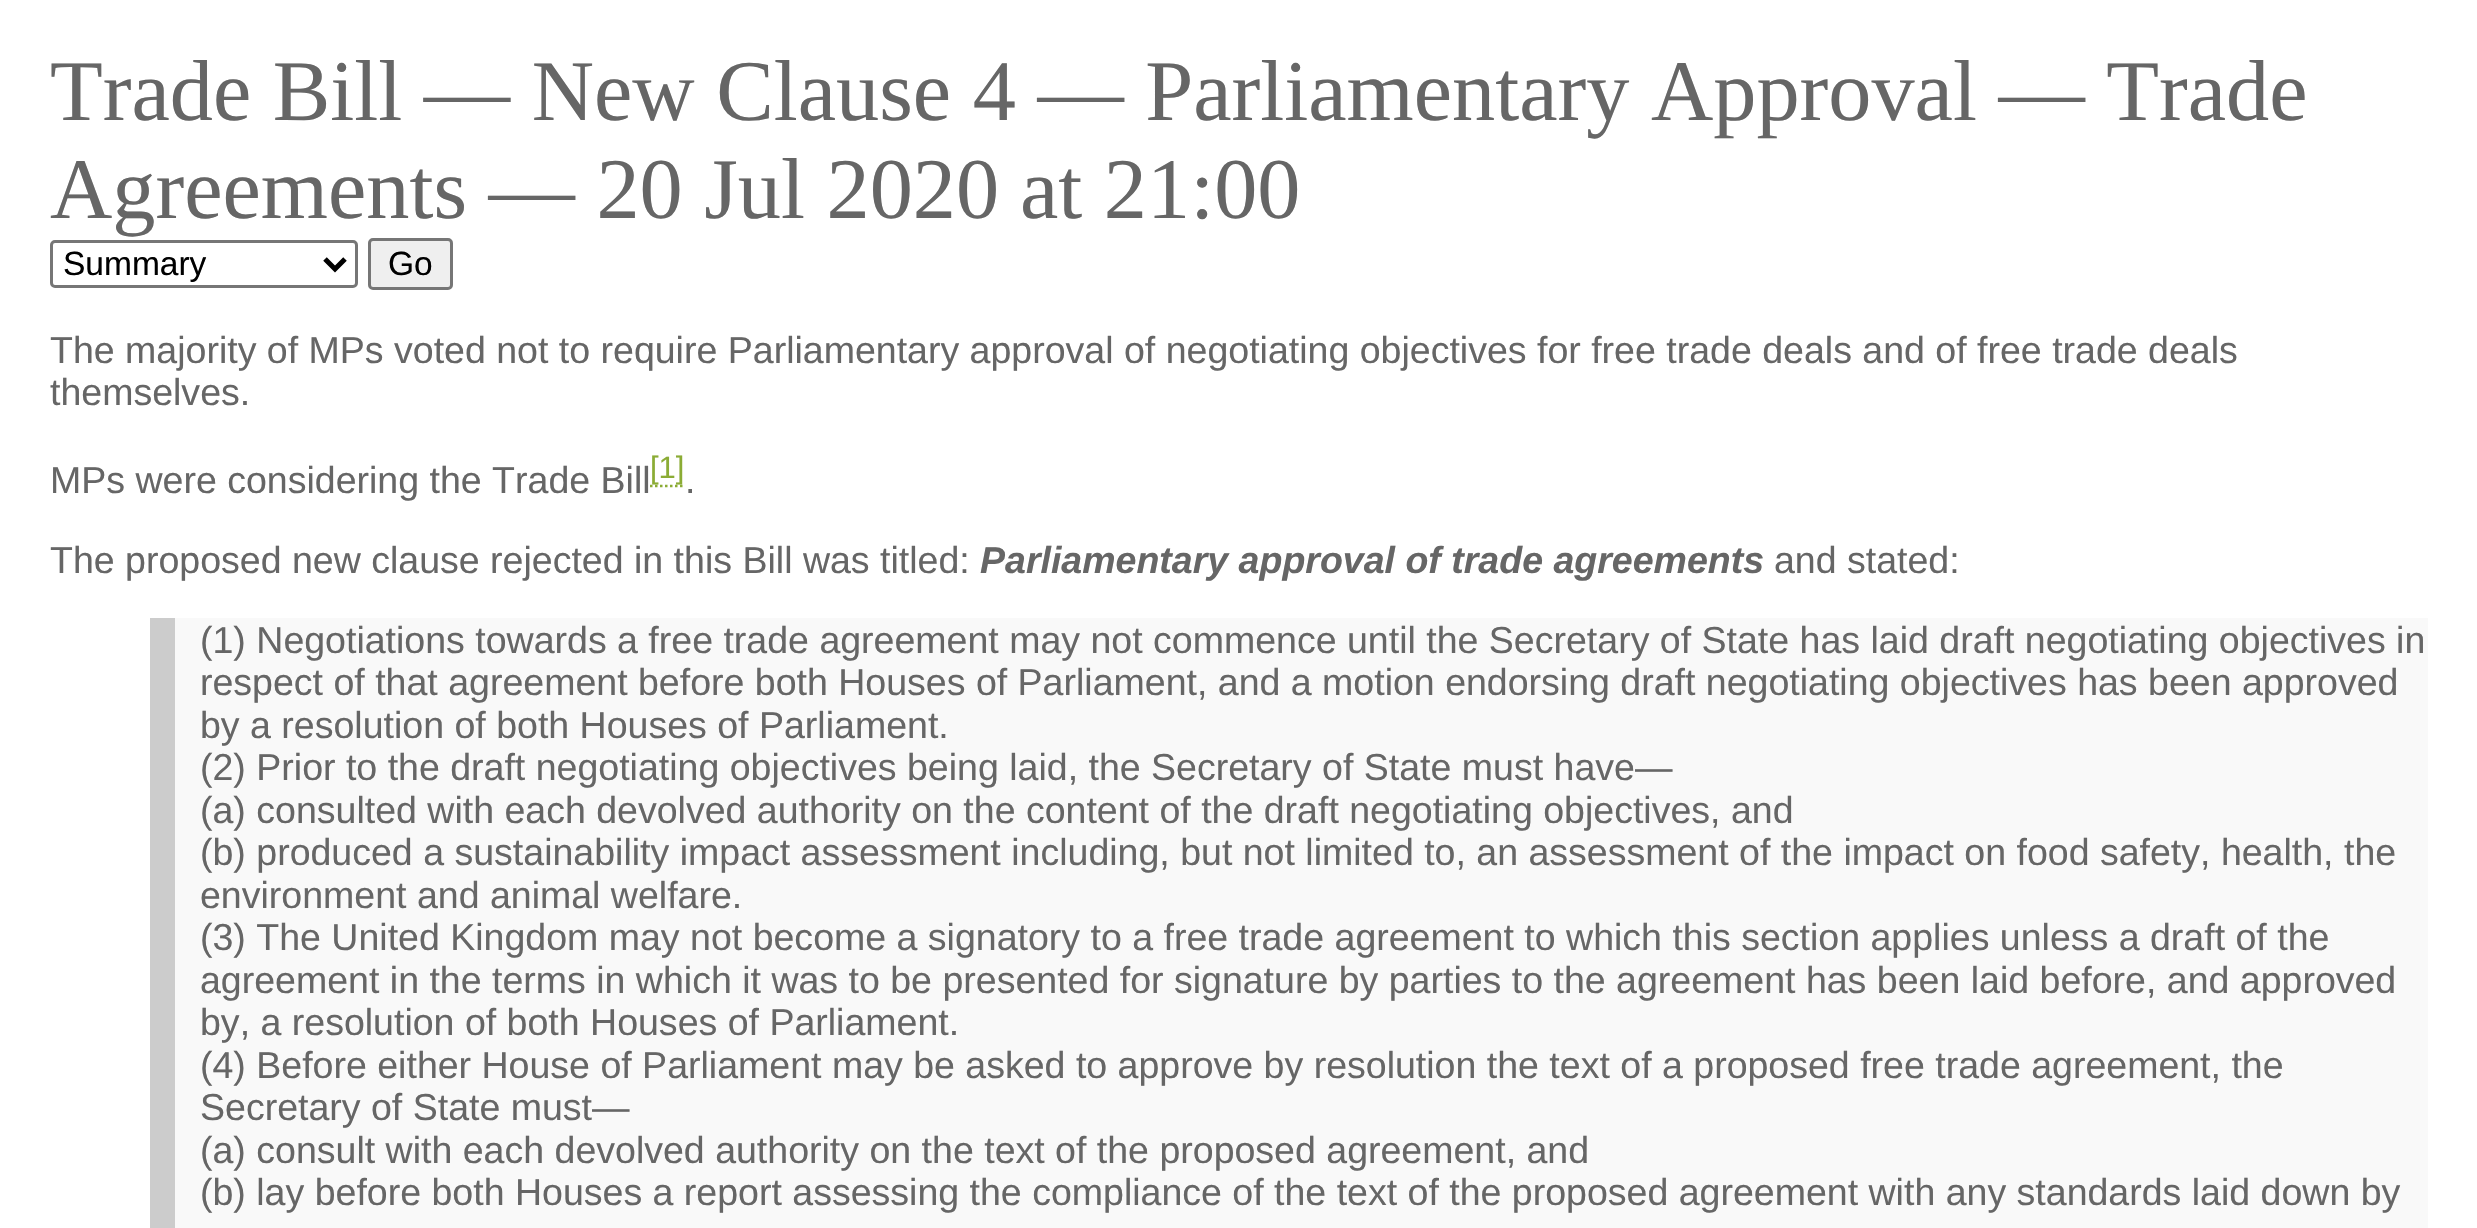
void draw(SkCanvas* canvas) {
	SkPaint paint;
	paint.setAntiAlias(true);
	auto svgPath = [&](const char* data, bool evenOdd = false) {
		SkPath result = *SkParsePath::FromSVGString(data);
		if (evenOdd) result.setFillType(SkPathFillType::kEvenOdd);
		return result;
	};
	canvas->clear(0xffffffff);
	SkFont f1(fontMgr->matchFamilyStyle("Liberation Serif", SkFontStyle::Normal()), 86.3);
	f1.setSubpixel(true);
	paint.setColor(0xff666666);
	canvas->drawString("Trade Bill — New Clause 4 — Parliamentary Approval — Trade", 50, 120, f1, paint);
	canvas->drawString("Agreements — 20 Jul 2020", 50, 218, f1, paint);
	canvas->drawString("at 21:00", 1020, 218, f1, paint);
	paint.setStroke(true);
	paint.setStrokeWidth(3);
	paint.setColor(0xff767676);
	canvas->drawRoundRect(SkRect::MakeXYWH(51.5, 241.5, 305, 45), 3.5, 3.5, paint);
	paint.setStrokeWidth(5);
	paint.setColor(0xff000000);
	canvas->drawPath(svgPath("M325 259L335 269L345 259"), paint);
	SkFont f2(fontMgr->matchFamilyStyle("Liberation Sans", SkFontStyle::Normal()), 33.5);
	f2.setSubpixel(true);
	paint.setStroke(false);
	canvas->drawString("Summary", 63, 275, f2, paint);
	paint.setColor(0xffefefef);
	canvas->drawRoundRect(SkRect::MakeXYWH(369.5, 239.5, 82, 49), 3.5, 3.5, paint);
	paint.setStroke(true);
	paint.setStrokeWidth(3);
	paint.setColor(0xff767676);
	canvas->drawRoundRect(SkRect::MakeXYWH(369.5, 239.5, 82, 49), 3.5, 3.5, paint);
	paint.setStroke(false);
	paint.setColor(0xff000000);
	canvas->drawString("Go", 388, 275, f2, paint);
	SkFont f3(fontMgr->matchFamilyStyle("Liberation Sans", SkFontStyle::Normal()), 37.52);
	f3.setSubpixel(true);
	paint.setColor(0xff666666);
	canvas->drawString("The majority of MPs voted not to require Parliamentary approval of negotiating objectives for free trade deals and of free trade deals", 50, 363, f3, paint);
	canvas->drawString("themselves.", 50, 405, f3, paint);
	canvas->drawString("MPs were considering the Trade Bill", 50, 493, f3, paint);
	paint.setStroke(true);
	paint.setStrokeWidth(2.5);
	paint.setColor(0xff8bac35);
	paint.setPathEffect(SkDashPathEffect::Make({{2.5f, 2.5f}}, 0));
	canvas->drawPath(svgPath("M650 486H685"), paint);
	paint.setPathEffect(nullptr);
	SkFont f4(fontMgr->matchFamilyStyle("Liberation Sans", SkFontStyle::Normal()), 31);
	f4.setSubpixel(true);
	paint.setStroke(false);
	canvas->drawString("[1]", 650, 478, f4, paint);
	paint.setColor(0xff666666);
	canvas->drawString(".", 685, 493, f3, paint);
	canvas->drawString("The proposed new clause rejected in this Bill was titled:", 50, 573, f3, paint);
	SkFont f5(fontMgr->matchFamilyStyle("Liberation Sans", SkFontStyle::BoldItalic()), 37.52);
	f5.setSubpixel(true);
	canvas->drawString("Parliamentary approval of trade agreements", 980, 573, f5, paint);
	canvas->drawString("and stated:", 1774, 573, f3, paint);
	paint.setColor(0xfff9f9f9);
	canvas->drawRect(SkRect::MakeXYWH(175, 618, 2253, 610), paint);
	paint.setColor(0xffcccccc);
	canvas->drawRect(SkRect::MakeXYWH(150, 618, 25, 610), paint);
	paint.setColor(0xff666666);
	canvas->drawString("(1) Negotiations towards a free trade agreement may not commence until the Secretary of State has laid draft negotiating objectives in", 200, 653, f3, paint);
	canvas->drawString("respect of that agreement before both Houses of Parliament, and a motion endorsing draft negotiating objectives has been approved", 200, 695, f3, paint);
	canvas->drawString("by a resolution of both Houses of Parliament.", 200, 738, f3, paint);
	canvas->drawString("(2) Prior to the draft negotiating objectives being laid, the Secretary of State must have—", 200, 780, f3, paint);
	canvas->drawString("(a) consulted with each devolved authority on the content of the draft negotiating objectives, and", 200, 823, f3, paint);
	canvas->drawString("(b) produced a sustainability impact assessment including, but not limited to, an assessment of the impact on food safety, health, the", 200, 865, f3, paint);
	canvas->drawString("environment and animal welfare.", 200, 908, f3, paint);
	canvas->drawString("(3) The United Kingdom may not become a signatory to a free trade agreement to which this section applies unless a draft of the", 200, 950, f3, paint);
	canvas->drawString("agreement in the terms in which it was to be presented for signature by parties to the agreement has been laid before, and approved", 200, 993, f3, paint);
	canvas->drawString("by, a resolution of both Houses of Parliament.", 200, 1035, f3, paint);
	canvas->drawString("(4) Before either House of Parliament may be asked to approve by resolution the text of a proposed free trade agreement, the", 200, 1078, f3, paint);
	canvas->drawString("Secretary of State must—", 200, 1120, f3, paint);
	canvas->drawString("(a) consult with each devolved authority on the text of the proposed agreement, and", 200, 1163, f3, paint);
	canvas->drawString("(b) lay before both Houses a report assessing the compliance of the text of the proposed agreement with any standards laid down by", 200, 1205, f3, paint);
}
